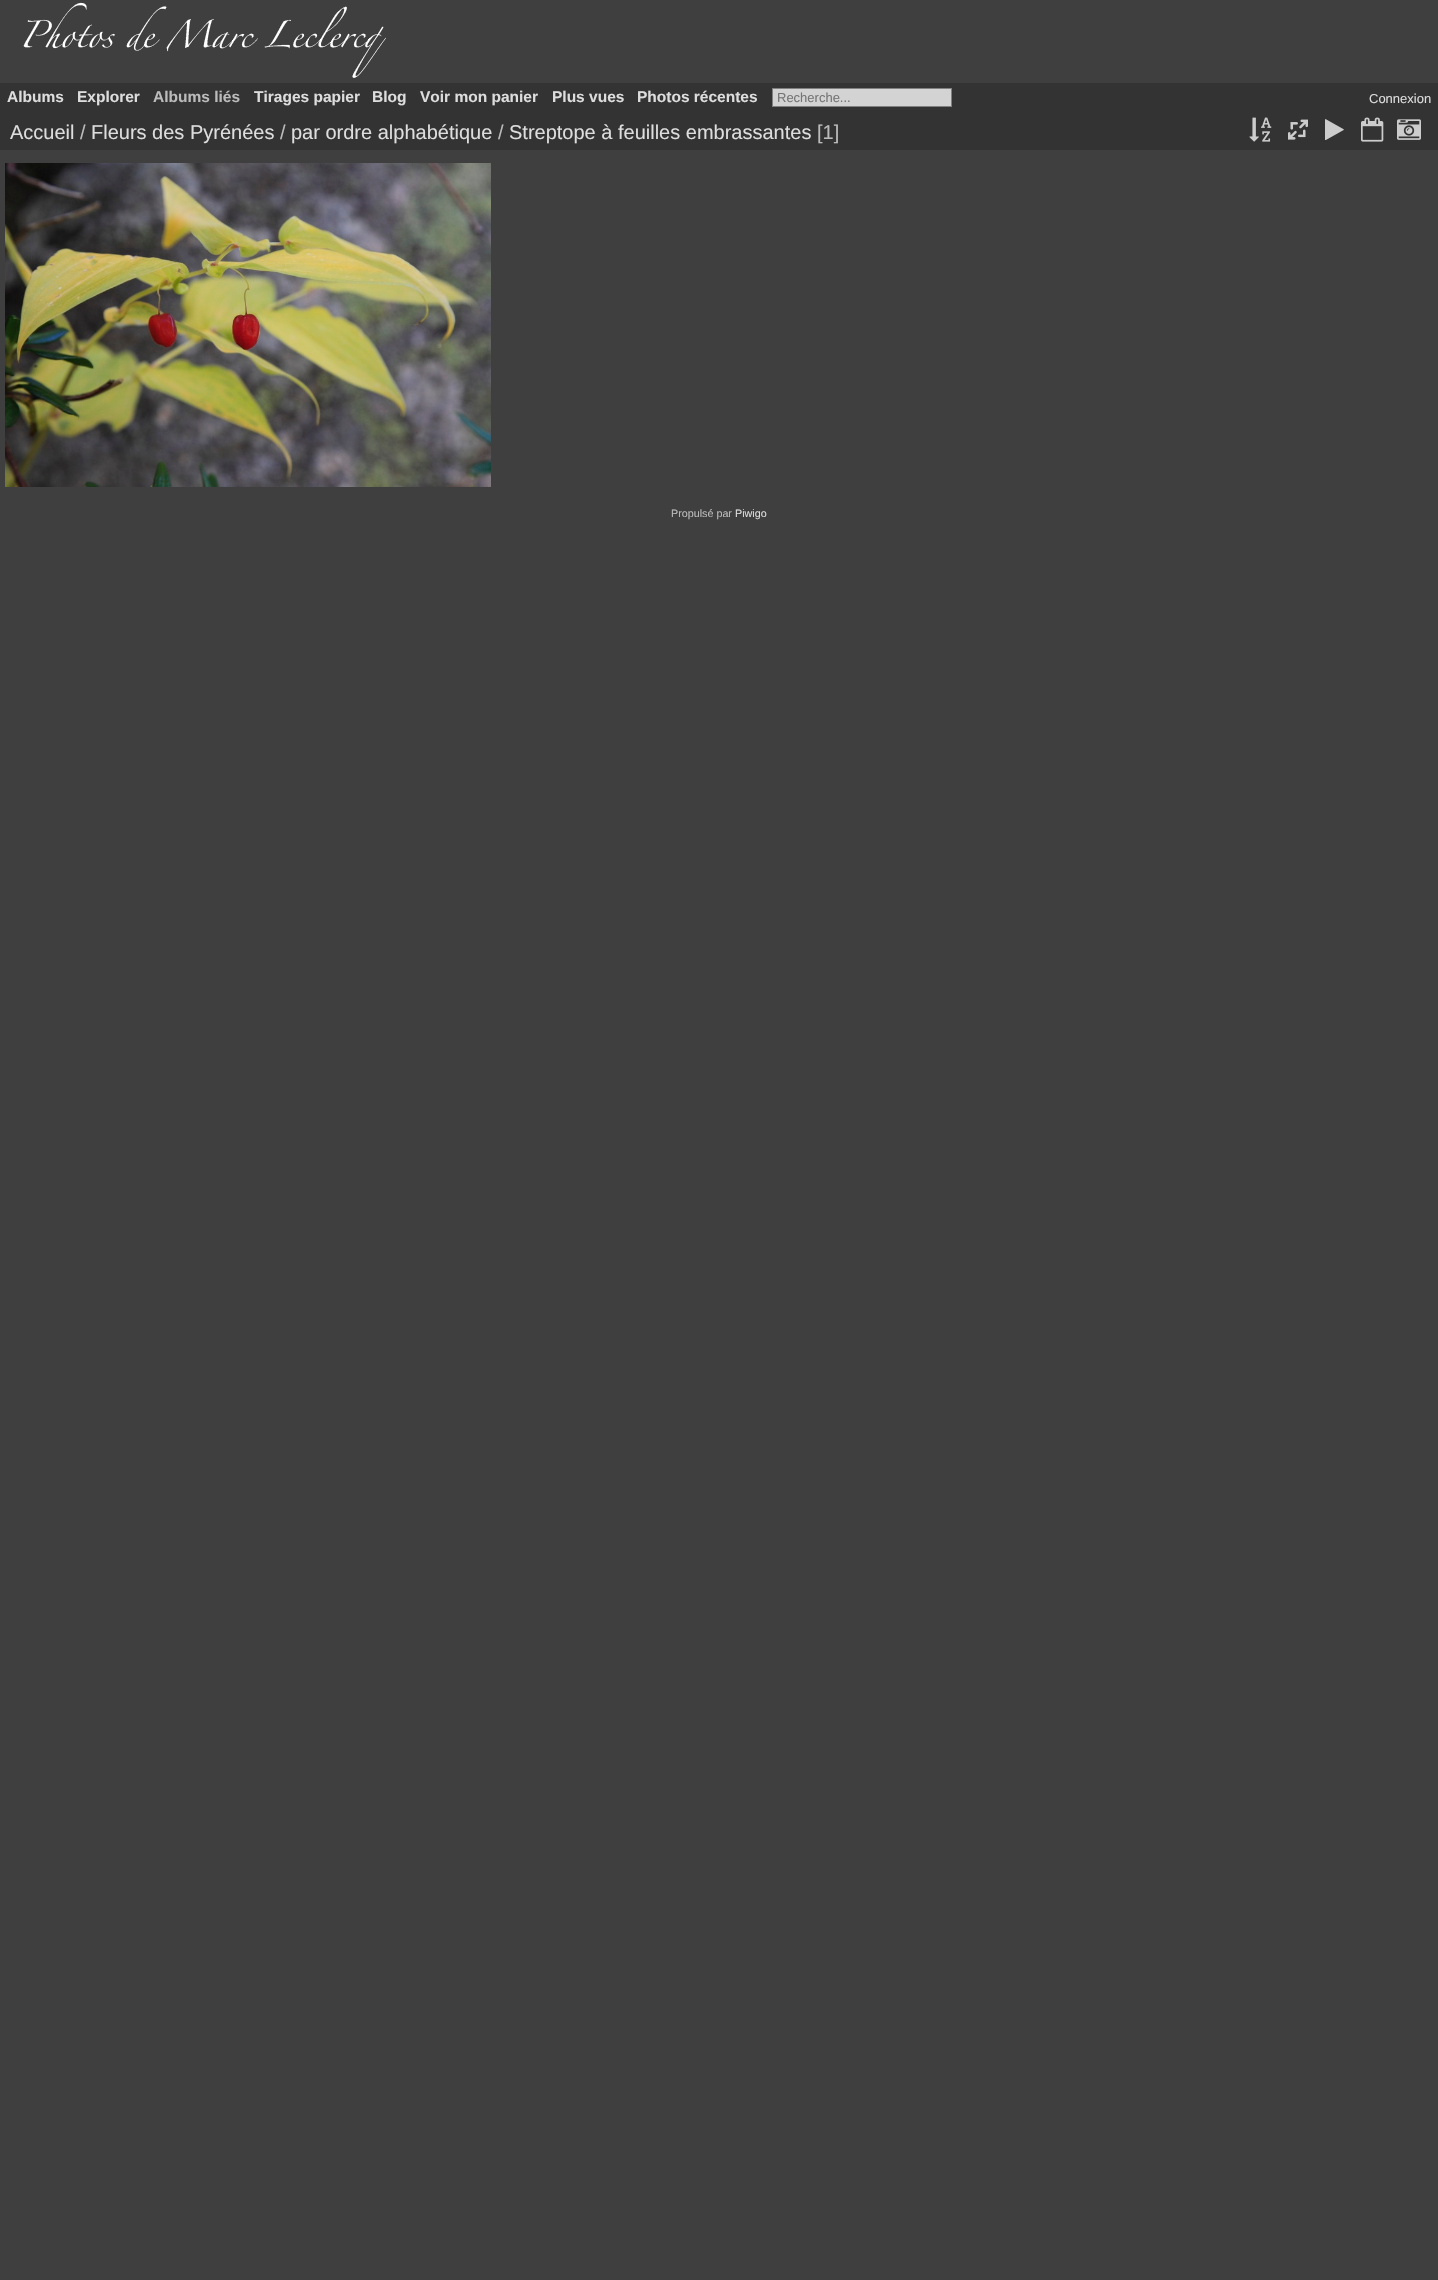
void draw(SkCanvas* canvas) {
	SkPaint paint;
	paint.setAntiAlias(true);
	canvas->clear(0xff3f3f3f);
	canvas->drawImageRect(SkImages::DeferredFromEncodedData(SkData::MakeFromFileName("img1.png")), SkRect::MakeXYWH(23, 2, 363, 76), SkSamplingOptions());
	paint.setColor(0xff333333);
	canvas->drawRect(SkRect::MakeXYWH(0, 83, 1438, 67), paint);
	SkFont f1(fontMgr->matchFamilyStyle("Liberation Sans", SkFontStyle::Bold()), 15.5);
	f1.setSubpixel(true);
	paint.setColor(0xffdddddd);
	canvas->drawString("Albums", 7, 102, f1, paint);
	canvas->drawString("Explorer", 77, 102, f1, paint);
	paint.setColor(0xffbbbbbb);
	canvas->drawString("Albums liés", 153, 102, f1, paint);
	paint.setColor(0xffdddddd);
	canvas->drawString("Tirages papier", 254, 102, f1, paint);
	canvas->drawString("Blog", 372, 102, f1, paint);
	canvas->drawString("Voir mon panier", 420, 102, f1, paint);
	canvas->drawString("Plus vues", 552, 102, f1, paint);
	canvas->drawString("Photos récentes", 637, 102, f1, paint);
	paint.setColor(0xffd3d3d3);
	canvas->drawRect(SkRect::MakeXYWH(772.5, 88.5, 179, 18), paint);
	paint.setStroke(true);
	paint.setStrokeWidth(1);
	paint.setColor(0xff808080);
	canvas->drawRect(SkRect::MakeXYWH(772.5, 88.5, 179, 18), paint);
	SkFont f2(fontMgr->matchFamilyStyle("Liberation Sans", SkFontStyle::Normal()), 13);
	f2.setSubpixel(true);
	paint.setStroke(false);
	paint.setColor(0xff757575);
	canvas->drawString("Recherche...", 777, 102, f2, paint);
	paint.setColor(0xffdddddd);
	canvas->drawString("Connexion", 1369, 103, f2, paint);
	SkFont f3(fontMgr->matchFamilyStyle("Liberation Sans", SkFontStyle::Normal()), 20);
	f3.setSubpixel(true);
	canvas->drawString("Accueil", 10, 139, f3, paint);
	paint.setColor(0xffbbbbbb);
	canvas->drawString("/", 80, 139, f3, paint);
	paint.setColor(0xffdddddd);
	canvas->drawString("Fleurs des Pyrénées", 91, 139, f3, paint);
	paint.setColor(0xffbbbbbb);
	canvas->drawString("/", 280, 139, f3, paint);
	paint.setColor(0xffdddddd);
	canvas->drawString("par ordre alphabétique", 291, 139, f3, paint);
	paint.setColor(0xffbbbbbb);
	canvas->drawString("/", 498, 139, f3, paint);
	paint.setColor(0xffdddddd);
	canvas->drawString("Streptope à feuilles embrassantes", 509, 139, f3, paint);
	paint.setColor(0xffbbbbbb);
	canvas->drawString("[1]", 817, 139, f3, paint);
	canvas->drawImageRect(SkImages::DeferredFromEncodedData(SkData::MakeFromFileName("img2.png")), SkRect::MakeXYWH(1249, 117, 23, 25), SkSamplingOptions());
	canvas->drawImageRect(SkImages::DeferredFromEncodedData(SkData::MakeFromFileName("img3.png")), SkRect::MakeXYWH(1288, 119, 20, 21), SkSamplingOptions());
	SkFont f4(fontMgr->matchFamilyStyle("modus", SkFontStyle::Normal()), 24);
	f4.setSubpixel(true);
	paint.setColor(0xffcccccc);
	canvas->drawString("▶", 1325, 138, f4, paint);
	canvas->drawImageRect(SkImages::DeferredFromEncodedData(SkData::MakeFromFileName("img4.png")), SkRect::MakeXYWH(1361, 117, 23, 25), SkSamplingOptions());
	canvas->drawImageRect(SkImages::DeferredFromEncodedData(SkData::MakeFromFileName("img5.png")), SkRect::MakeXYWH(1397, 119, 24, 21), SkSamplingOptions());
	canvas->drawImageRect(SkImages::DeferredFromEncodedData(SkData::MakeFromFileName("img6.png")), SkRect::MakeXYWH(5, 163, 486, 324), SkSamplingOptions());
	SkFont f5(fontMgr->matchFamilyStyle("Liberation Sans", SkFontStyle::Normal()), 10.75);
	f5.setSubpixel(true);
	paint.setColor(0xffbbbbbb);
	canvas->drawString("Propulsé par", 671, 517, f5, paint);
	paint.setColor(0xffdddddd);
	canvas->drawString("Piwigo", 735, 517, f5, paint);
}
